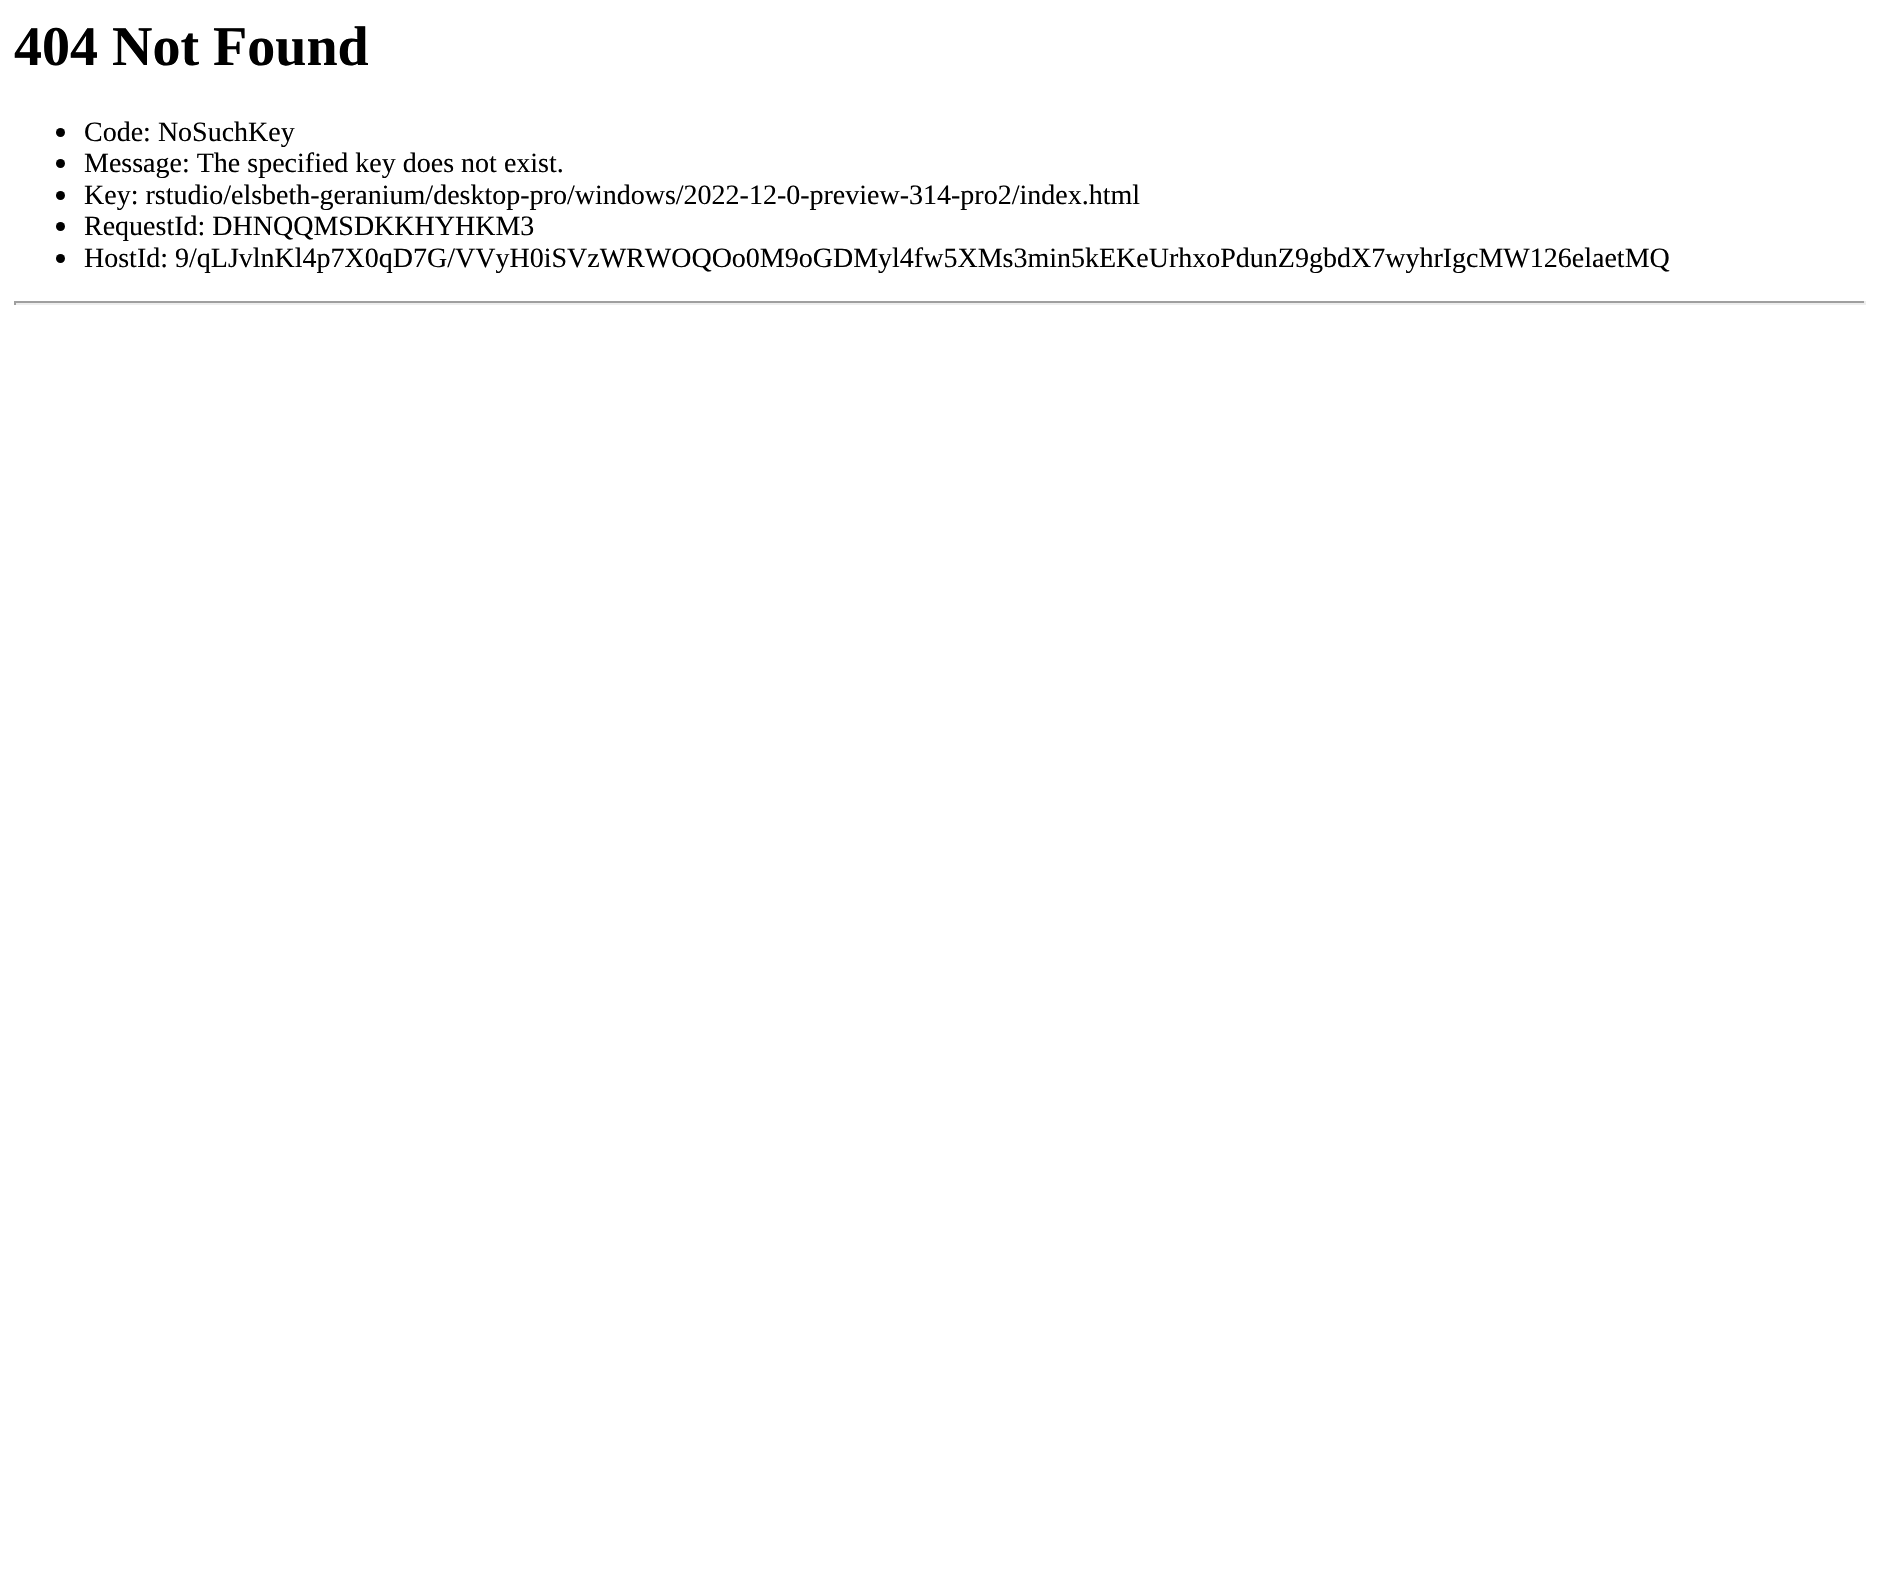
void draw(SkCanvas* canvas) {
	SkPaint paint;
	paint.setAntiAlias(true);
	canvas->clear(0xffffffff);
	SkFont f1(fontMgr->matchFamilyStyle("Liberation Serif", SkFontStyle::Bold()), 56);
	f1.setSubpixel(true);
	paint.setColor(0xff000000);
	canvas->drawString("404 Not Found", 14, 65, f1, paint);
	canvas->drawCircle(60.5, 132.5, 4.5, paint);
	SkFont f2(fontMgr->matchFamilyStyle("Liberation Serif", SkFontStyle::Normal()), 28);
	f2.setSubpixel(true);
	canvas->drawString("Code: NoSuchKey", 84, 141, f2, paint);
	canvas->drawCircle(60.5, 163.5, 4.5, paint);
	canvas->drawString("Message: The specified key does not exist.", 84, 172, f2, paint);
	canvas->drawCircle(60.5, 195.5, 4.5, paint);
	canvas->drawString("Key: rstudio/elsbeth-geranium/desktop-pro/windows/2022-12-0-preview-314-pro2/index.html", 84, 204, f2, paint);
	canvas->drawCircle(60.5, 226.5, 4.5, paint);
	canvas->drawString("RequestId: DHNQQMSDKKHYHKM3", 84, 235, f2, paint);
	canvas->drawCircle(60.5, 258.5, 4.5, paint);
	canvas->drawString("HostId: 9/qLJvlnKl4p7X0qD7G/VVyH0iSVzWRWOQOo0M9oGDMyl4fw5XMs3min5kEKeUrhxoPdunZ9gbdX7wyhrIgcMW126elaetMQ", 84, 267, f2, paint);
	paint.setColor(0xff9f9f9f);
	canvas->drawRect(SkRect::MakeXYWH(14, 301, 1852, 2), paint);
	paint.setColor(0xffeeeeee);
	canvas->drawRect(SkRect::MakeXYWH(1864, 301, 2, 4), paint);
	canvas->drawRect(SkRect::MakeXYWH(14, 303, 1852, 2), paint);
	paint.setColor(0xff9f9f9f);
	canvas->drawRect(SkRect::MakeXYWH(14, 301, 2, 4), paint);
}
